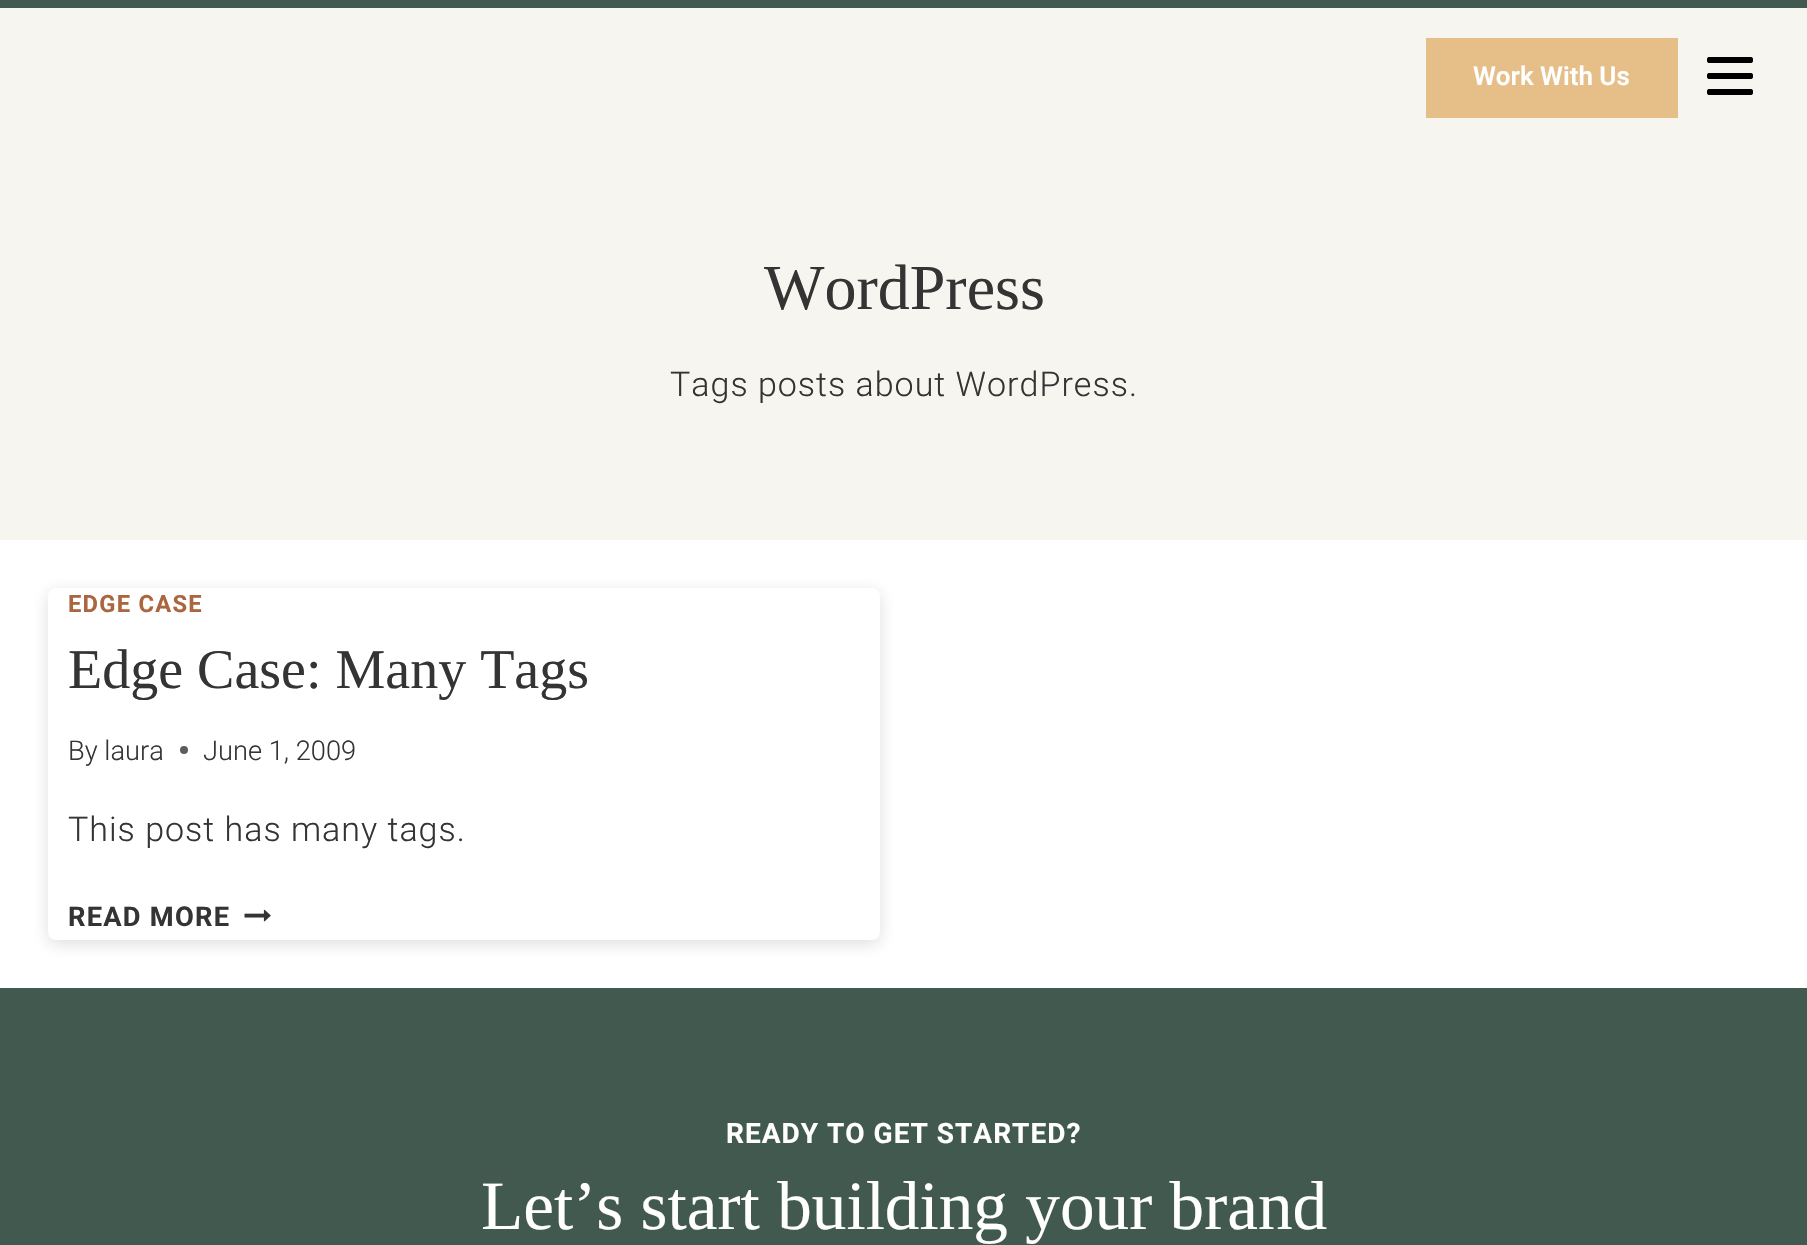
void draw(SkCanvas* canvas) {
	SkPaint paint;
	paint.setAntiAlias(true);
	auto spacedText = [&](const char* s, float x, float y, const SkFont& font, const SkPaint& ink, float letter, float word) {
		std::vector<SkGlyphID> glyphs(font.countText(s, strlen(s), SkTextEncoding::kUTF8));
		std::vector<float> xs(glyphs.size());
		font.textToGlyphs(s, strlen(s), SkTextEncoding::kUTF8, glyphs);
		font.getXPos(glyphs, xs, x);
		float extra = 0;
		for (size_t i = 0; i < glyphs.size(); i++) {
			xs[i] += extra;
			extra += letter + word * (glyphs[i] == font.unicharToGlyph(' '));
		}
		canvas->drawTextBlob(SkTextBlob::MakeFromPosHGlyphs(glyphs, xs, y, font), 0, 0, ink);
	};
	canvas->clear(0xffffffff);
	paint.setColor(0xff42594f);
	canvas->drawRect(SkRect::MakeXYWH(0, 0, 1807, 8), paint);
	paint.setColor(0xfff7f5f0);
	canvas->drawRect(SkRect::MakeXYWH(0, 8, 1807, 532), paint);
	paint.setColor(0xffe5be88);
	canvas->drawRect(SkRect::MakeXYWH(1426, 38, 252, 80), paint);
	SkFont f1(fontMgr->matchFamilyStyle("Roboto", SkFontStyle(600, SkFontStyle::kNormal_Width, SkFontStyle::kUpright_Slant)), 26);
	f1.setSubpixel(true);
	paint.setColor(0xffffffff);
	canvas->drawString("Work With Us", 1473, 85, f1, paint);
	canvas->drawImageRect(SkImages::DeferredFromEncodedData(SkData::MakeFromFileName("img1.png")), SkRect::MakeXYWH(1707, 57, 46, 38), SkSamplingOptions());
	SkFont f2(fontMgr->matchFamilyStyle("Liberation Serif", SkFontStyle::Normal()), 64);
	f2.setSubpixel(true);
	paint.setColor(0xff343434);
	canvas->drawString("WordPress", 764, 309, f2, paint);
	SkFont f3(fontMgr->matchFamilyStyle("Roboto", SkFontStyle(300, SkFontStyle::kNormal_Width, SkFontStyle::kUpright_Slant)), 34);
	f3.setSubpixel(true);
	spacedText("Tags posts about WordPress.", 670, 396, f3, paint, 1, 0);
	paint.setColor(0x26232323);
	paint.setMaskFilter(SkMaskFilter::MakeBlur(kNormal_SkBlurStyle, 8));
	canvas->drawRoundRect(SkRect::MakeXYWH(48, 592, 832, 352), 8, 8, paint);
	paint.setMaskFilter(nullptr);
	paint.setColor(0xffffffff);
	canvas->drawRoundRect(SkRect::MakeXYWH(48, 588, 832, 352), 8, 8, paint);
	SkFont f4(fontMgr->matchFamilyStyle("Roboto", SkFontStyle::Bold()), 23.75);
	f4.setSubpixel(true);
	paint.setColor(0xffab653f);
	spacedText("EDGE CASE", 68, 612, f4, paint, 1.25, 0);
	SkFont f5(fontMgr->matchFamilyStyle("Liberation Serif", SkFontStyle::Normal()), 56);
	f5.setSubpixel(true);
	paint.setColor(0xff343434);
	canvas->drawString("Edge Case: Many Tags", 68, 688, f5, paint);
	SkFont f6(fontMgr->matchFamilyStyle("Roboto", SkFontStyle(300, SkFontStyle::kNormal_Width, SkFontStyle::kUpright_Slant)), 27.25);
	f6.setSubpixel(true);
	canvas->drawString("By laura", 68, 760, f6, paint);
	paint.setColor(0xff5d5d5d);
	canvas->drawCircle(184, 750, 4, paint);
	paint.setColor(0xff343434);
	canvas->drawString("June 1, 2009", 203, 760, f6, paint);
	spacedText("This post has many tags.", 68, 841, f3, paint, 1, 0);
	SkFont f7(fontMgr->matchFamilyStyle("Roboto", SkFontStyle::Bold()), 27.25);
	f7.setSubpixel(true);
	spacedText("READ MORE", 68, 926, f7, paint, 1.25, 0);
	canvas->drawImageRect(SkImages::DeferredFromEncodedData(SkData::MakeFromFileName("img2.png")), SkRect::MakeXYWH(244, 909, 27, 13), SkSamplingOptions());
	paint.setColor(0xff42594f);
	canvas->drawRect(SkRect::MakeXYWH(0, 988, 1807, 257), paint);
	SkFont f8(fontMgr->matchFamilyStyle("Roboto", SkFontStyle::Bold()), 28);
	f8.setSubpixel(true);
	paint.setColor(0xffffffff);
	spacedText("READY TO GET STARTED?", 726, 1143, f8, paint, 1, 0);
	SkFont f9(fontMgr->matchFamilyStyle("Liberation Serif", SkFontStyle::Normal()), 69.25);
	f9.setSubpixel(true);
	canvas->drawString("Let’s start building your brand", 481, 1229, f9, paint);
}
